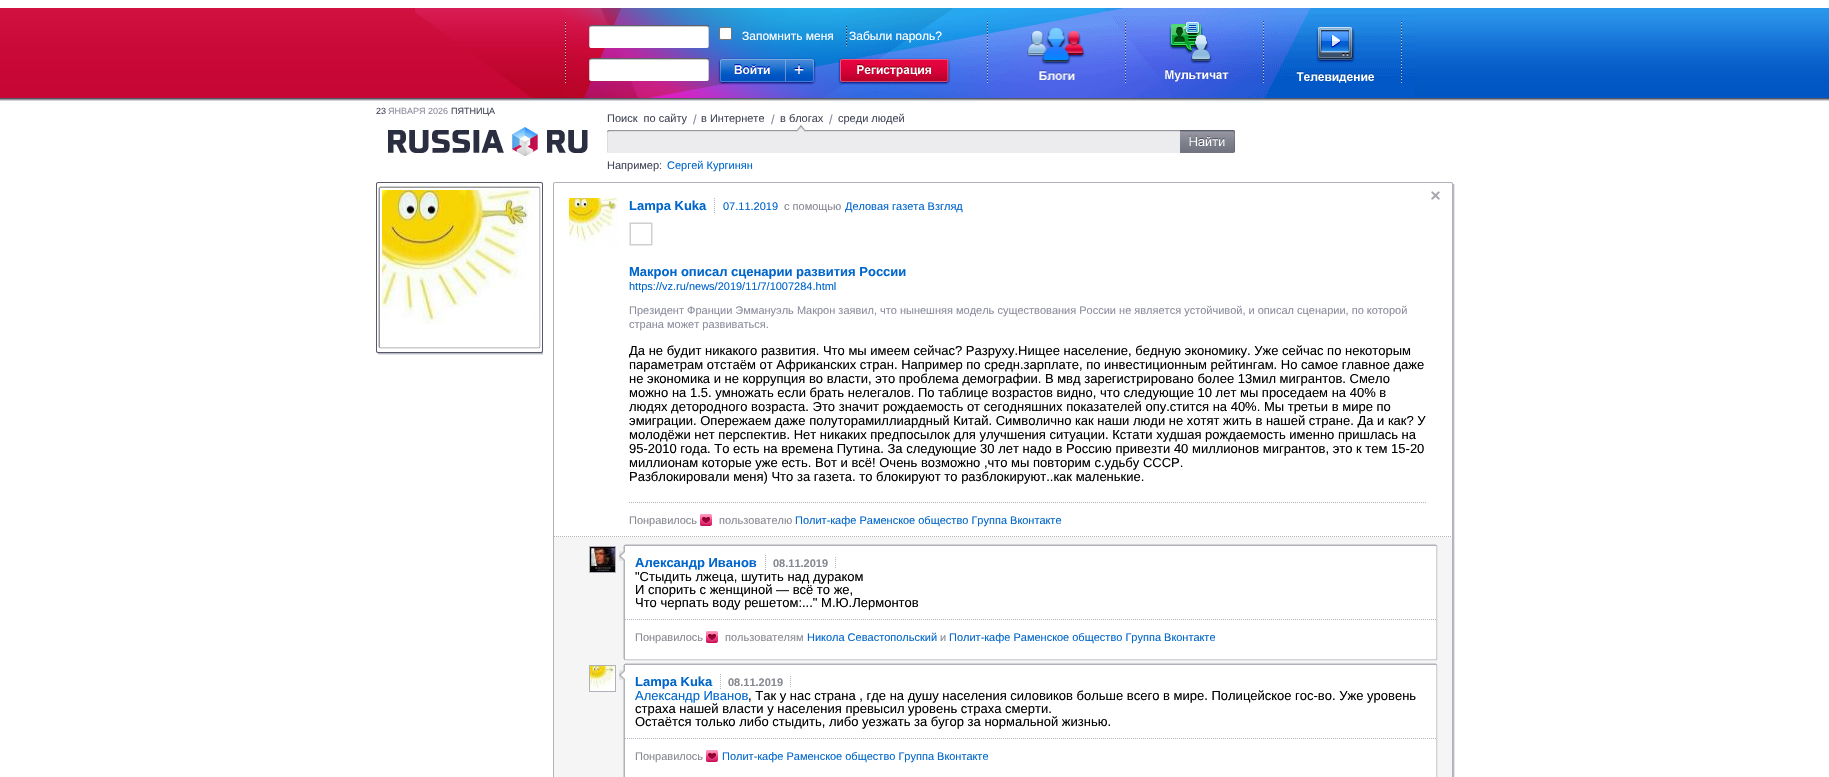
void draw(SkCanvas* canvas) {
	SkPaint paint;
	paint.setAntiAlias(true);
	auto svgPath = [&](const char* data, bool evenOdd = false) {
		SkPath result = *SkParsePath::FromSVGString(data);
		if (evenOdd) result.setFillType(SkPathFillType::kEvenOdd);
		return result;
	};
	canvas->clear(0xffffffff);
	canvas->drawImageRect(SkImages::DeferredFromEncodedData(SkData::MakeFromFileName("img1.png")), SkRect::MakeXYWH(0, 8, 415, 93), SkSamplingOptions());
	canvas->drawImageRect(SkImages::DeferredFromEncodedData(SkData::MakeFromFileName("img2.png")), SkRect::MakeXYWH(415, 8, 1000, 93), SkSamplingOptions());
	paint.setColor(0xffffffff);
	canvas->drawRoundRect(SkRect::MakeXYWH(719.5, 27.5, 12, 12), 1.5, 1.5, paint);
	paint.setStroke(true);
	paint.setStrokeWidth(1);
	paint.setColor(0xff767676);
	canvas->drawRoundRect(SkRect::MakeXYWH(719.5, 27.5, 12, 12), 1.5, 1.5, paint);
	SkFont f1(fontMgr->matchFamilyStyle("Liberation Sans", SkFontStyle::Normal()), 12);
	f1.setSubpixel(true);
	paint.setStroke(false);
	paint.setColor(0xffffffff);
	canvas->drawString("Запомнить меня", 742, 40, f1, paint);
	canvas->drawString("Забыли пароль?", 849, 40, f1, paint);
	canvas->drawImageRect(SkImages::DeferredFromEncodedData(SkData::MakeFromFileName("img3.png")), SkRect::MakeXYWH(718, 58, 98, 27), SkSamplingOptions());
	canvas->drawImageRect(SkImages::DeferredFromEncodedData(SkData::MakeFromFileName("img4.png")), SkRect::MakeXYWH(838, 58, 113, 27), SkSamplingOptions());
	canvas->drawImageRect(SkImages::DeferredFromEncodedData(SkData::MakeFromFileName("img5.png")), SkRect::MakeXYWH(1027, 28, 58, 52), SkSamplingOptions());
	canvas->drawImageRect(SkImages::DeferredFromEncodedData(SkData::MakeFromFileName("img6.png")), SkRect::MakeXYWH(1165, 22, 64, 60), SkSamplingOptions());
	canvas->drawImageRect(SkImages::DeferredFromEncodedData(SkData::MakeFromFileName("img7.png")), SkRect::MakeXYWH(1296, 27, 78, 56), SkSamplingOptions());
	canvas->drawImageRect(SkImages::DeferredFromEncodedData(SkData::MakeFromFileName("img8.png")), SkRect::MakeXYWH(1415, 8, 414, 93), SkSamplingOptions());
	SkFont f2(fontMgr->matchFamilyStyle("Liberation Sans", SkFontStyle::Normal()), 9);
	f2.setSubpixel(true);
	paint.setColor(0xff434657);
	canvas->drawString("23", 376, 114, f2, paint);
	paint.setColor(0xff8b8d9d);
	canvas->drawString("ЯНВАРЯ 2026", 388, 114, f2, paint);
	paint.setColor(0xff434657);
	canvas->drawString("ПЯТНИЦА", 451, 114, f2, paint);
	canvas->drawImageRect(SkImages::DeferredFromEncodedData(SkData::MakeFromFileName("img9.png")), SkRect::MakeXYWH(388, 127, 200, 29), SkSamplingOptions());
	SkFont f3(fontMgr->matchFamilyStyle("Liberation Sans", SkFontStyle::Normal()), 11);
	f3.setSubpixel(true);
	canvas->drawString("Поиск  по сайту", 607, 122, f3, paint);
	SkFont f4(fontMgr->matchFamilyStyle("Liberation Sans", SkFontStyle::Normal()), 13);
	f4.setSubpixel(true);
	paint.setColor(0xff8b8d9d);
	canvas->drawString("/", 693, 124, f4, paint);
	paint.setColor(0xff434657);
	canvas->drawString("в Интернете", 701, 122, f3, paint);
	paint.setColor(0xff8b8d9d);
	canvas->drawString("/", 771, 124, f4, paint);
	paint.setColor(0xff9697a1);
	canvas->drawRect(SkRect::MakeXYWH(607, 130, 573, 1), paint);
	paint.setColor(0xffdcdcdf);
	canvas->drawRect(SkRect::MakeXYWH(607, 131, 573, 1), paint);
	canvas->drawImageRect(SkImages::DeferredFromEncodedData(SkData::MakeFromFileName("img10.png")), SkRect::MakeXYWH(796, 125, 10, 7), SkSamplingOptions());
	paint.setColor(0xff434657);
	canvas->drawString("в блогах", 780, 122, f3, paint);
	paint.setColor(0xff8b8d9d);
	canvas->drawString("/", 829, 124, f4, paint);
	paint.setColor(0xff434657);
	canvas->drawString("среди людей", 838, 122, f3, paint);
	paint.setColor(0xffdcdcdf);
	canvas->drawRect(SkRect::MakeXYWH(607, 131, 1, 22), paint);
	canvas->drawImageRect(SkImages::DeferredFromEncodedData(SkData::MakeFromFileName("img11.png")), SkRect::MakeXYWH(607, 130, 2, 2), SkSamplingOptions());
	paint.setColor(0xffececee);
	canvas->drawRect(SkRect::MakeXYWH(608, 132, 572, 21), paint);
	canvas->drawImageRect(SkImages::DeferredFromEncodedData(SkData::MakeFromFileName("img12.png")), SkRect::MakeXYWH(607, 152, 2, 1), SkSamplingOptions());
	canvas->drawImageRect(SkImages::DeferredFromEncodedData(SkData::MakeFromFileName("img13.png")), SkRect::MakeXYWH(1180, 130, 55, 23), SkSamplingOptions());
	paint.setColor(0xff434657);
	canvas->drawString("Например:", 607, 169, f3, paint);
	paint.setColor(0xff0066cc);
	canvas->drawString("Сергей Кургинян", 667, 169, f3, paint);
	paint.setStroke(true);
	paint.setColor(0xff575968);
	canvas->drawRect(SkRect::MakeXYWH(376.5, 182.5, 166, 170), paint);
	canvas->drawImageRect(SkImages::DeferredFromEncodedData(SkData::MakeFromFileName("img14.png")), SkRect::MakeXYWH(376, 182, 2, 2), SkSamplingOptions());
	canvas->drawImageRect(SkImages::DeferredFromEncodedData(SkData::MakeFromFileName("img15.png")), SkRect::MakeXYWH(541, 182, 2, 2), SkSamplingOptions());
	paint.setColor(0xff999999);
	canvas->drawRect(SkRect::MakeXYWH(379.5, 187.5, 160, 160), paint);
	paint.setStroke(false);
	paint.setColor(0xffcccccc);
	canvas->drawRect(SkRect::MakeXYWH(380, 186, 159, 1), paint);
	canvas->drawRect(SkRect::MakeXYWH(378, 188, 1, 159), paint);
	canvas->drawImageRect(SkImages::DeferredFromEncodedData(SkData::MakeFromFileName("img16.png")), SkRect::MakeXYWH(382, 190, 155, 134), SkSamplingOptions());
	canvas->drawRect(SkRect::MakeXYWH(539, 188, 1, 159), paint);
	paint.setColor(0xffe5e6e8);
	canvas->drawRect(SkRect::MakeXYWH(540, 188, 1, 159), paint);
	paint.setColor(0xffcccccc);
	canvas->drawRect(SkRect::MakeXYWH(380, 347, 159, 1), paint);
	paint.setColor(0xffe5e6e8);
	canvas->drawRect(SkRect::MakeXYWH(380, 348, 159, 1), paint);
	canvas->drawImageRect(SkImages::DeferredFromEncodedData(SkData::MakeFromFileName("img17.png")), SkRect::MakeXYWH(376, 351, 2, 2), SkSamplingOptions());
	canvas->drawImageRect(SkImages::DeferredFromEncodedData(SkData::MakeFromFileName("img18.png")), SkRect::MakeXYWH(541, 351, 2, 2), SkSamplingOptions());
	paint.setColor(0xffb8b8c2);
	canvas->drawRect(SkRect::MakeXYWH(378, 353, 166, 1), paint);
	paint.setColor(0xffe5e6e8);
	canvas->drawRect(SkRect::MakeXYWH(378, 354, 166, 1), paint);
	paint.setColor(0xffffffff);
	canvas->drawRect(SkRect::MakeXYWH(543, 353, 1, 2), paint);
	paint.setStroke(true);
	paint.setColor(0xffb1b2b9);
	canvas->drawRect(SkRect::MakeXYWH(553.5, 182.5, 899, 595), paint);
	canvas->drawImageRect(SkImages::DeferredFromEncodedData(SkData::MakeFromFileName("img19.png")), SkRect::MakeXYWH(553, 182, 2, 2), SkSamplingOptions());
	canvas->drawImageRect(SkImages::DeferredFromEncodedData(SkData::MakeFromFileName("img20.png")), SkRect::MakeXYWH(1451, 182, 2, 2), SkSamplingOptions());
	canvas->drawImageRect(SkImages::DeferredFromEncodedData(SkData::MakeFromFileName("img21.png")), SkRect::MakeXYWH(1431, 191, 9, 9), SkSamplingOptions());
	paint.setStroke(false);
	paint.setColor(0xffb8b8c2);
	canvas->drawRect(SkRect::MakeXYWH(1453, 184, 1, 593), paint);
	paint.setColor(0xffe5e6e8);
	canvas->drawRect(SkRect::MakeXYWH(1454, 184, 1, 593), paint);
	canvas->drawImageRect(SkImages::DeferredFromEncodedData(SkData::MakeFromFileName("img22.png")), SkRect::MakeXYWH(569, 198, 49, 49), SkSamplingOptions());
	SkFont f5(fontMgr->matchFamilyStyle("Liberation Sans", SkFontStyle::Bold()), 13);
	f5.setSubpixel(true);
	paint.setColor(0xff0066cc);
	canvas->drawString("Lampa Kuka", 629, 210, f5, paint);
	paint.setStroke(true);
	paint.setColor(0xffb2b4bb);
	paint.setPathEffect(SkDashPathEffect::Make({{1, 1}}, 0));
	canvas->drawPath(svgPath("M714.5 198V213"), paint);
	paint.setPathEffect(nullptr);
	paint.setStroke(false);
	paint.setColor(0xff0066cc);
	canvas->drawString("07.11.2019", 723, 210, f3, paint);
	paint.setColor(0xff878991);
	canvas->drawString("с помощью", 784, 210, f3, paint);
	paint.setColor(0xff0066cc);
	canvas->drawString("Деловая газета Взгляд", 845, 210, f3, paint);
	paint.setStroke(true);
	paint.setColor(0xffceced3);
	canvas->drawRect(SkRect::MakeXYWH(630.5, 223.5, 21, 21), paint);
	paint.setStroke(false);
	paint.setColor(0xffe7e7e9);
	canvas->drawRect(SkRect::MakeXYWH(629, 222, 23, 1), paint);
	canvas->drawRect(SkRect::MakeXYWH(629, 223, 1, 22), paint);
	canvas->drawRect(SkRect::MakeXYWH(652, 223, 1, 22), paint);
	canvas->drawRect(SkRect::MakeXYWH(629, 245, 23, 1), paint);
	paint.setColor(0xff0066cc);
	canvas->drawString("Макрон описал сценарии развития России", 629, 276, f5, paint);
	canvas->drawString("https://vz.ru/news/2019/11/7/1007284.html", 629, 290, f3, paint);
	paint.setColor(0xff8b8d9d);
	canvas->drawString("Президент Франции Эммануэль Макрон заявил, что нынешняя модель существования России не является устойчивой, и описал сценарии, по которой", 629, 314, f3, paint);
	canvas->drawString("страна может развиваться.", 629, 328, f3, paint);
	canvas->save();
	canvas->clipRect(SkRect::MakeXYWH(629, 213, 798, 279));
	paint.setColor(0xff000000);
	canvas->drawString("Да не будит никакого развития. Что мы имеем сейчас? Разруху.Нищее население, бедную экономику. Уже сейчас по некоторым", 629, 355, f4, paint);
	canvas->restore();
	canvas->drawString("параметрам отстаём от Африканских стран. Например по средн.зарплате, по инвестиционным рейтингам. Но самое главное даже", 629, 369, f4, paint);
	canvas->drawString("не экономика и не коррупция во власти, это проблема демографии. В мвд зарегистрировано более 13мил мигрантов. Смело", 629, 383, f4, paint);
	canvas->drawString("можно на 1.5. умножать если брать нелегалов. По таблице возрастов видно, что следующие 10 лет мы проседаем на 40% в", 629, 397, f4, paint);
	canvas->drawString("людях детородного возраста. Это значит рождаемость от сегодняшних показателей опу.стится на 40%. Мы третьи в мире по", 629, 411, f4, paint);
	canvas->drawString("эмиграции. Опережаем даже полуторамиллиардный Китай. Символично как наши люди не хотят жить в нашей стране. Да и как? У", 629, 425, f4, paint);
	canvas->drawString("молодёжи нет перспектив. Нет никаких предпосылок для улучшения ситуации. Кстати худшая рождаемость именно пришлась на", 629, 439, f4, paint);
	canvas->drawString("95-2010 года. То есть на времена Путина. За следующие 30 лет надо в Россию привезти 40 миллионов мигрантов, это к тем 15-20", 629, 453, f4, paint);
	canvas->drawString("миллионам которые уже есть. Вот и всё! Очень возможно ,что мы повторим с.удьбу СССР.", 629, 467, f4, paint);
	canvas->drawString("Разблокировали меня) Что за газета. то блокируют то разблокируют..как маленькие.", 629, 481, f4, paint);
	canvas->drawImageRect(SkImages::DeferredFromEncodedData(SkData::MakeFromFileName("img23.png")), SkRect::MakeXYWH(629, 502, 797, 1), SkSamplingOptions());
	paint.setColor(0xff878991);
	canvas->drawString("Понравилось", 629, 524, f3, paint);
	canvas->drawImageRect(SkImages::DeferredFromEncodedData(SkData::MakeFromFileName("img24.png")), SkRect::MakeXYWH(700, 514, 12, 12), SkSamplingOptions());
	canvas->drawString("пользователю", 719, 524, f3, paint);
	paint.setColor(0xff0066cc);
	canvas->drawString("Полит-кафе Раменское общество Группа Вконтакте", 795, 524, f3, paint);
	paint.setColor(0xfff5f5f5);
	canvas->drawRect(SkRect::MakeXYWH(554, 537, 898, 240), paint);
	canvas->drawImageRect(SkImages::DeferredFromEncodedData(SkData::MakeFromFileName("img25.png")), SkRect::MakeXYWH(554, 536, 898, 1), SkSamplingOptions());
	paint.setColor(0xffffffff);
	canvas->drawRect(SkRect::MakeXYWH(624.5, 545.5, 812, 114), paint);
	paint.setStroke(true);
	paint.setColor(0xffb1b2b9);
	canvas->drawRect(SkRect::MakeXYWH(624.5, 545.5, 812, 114), paint);
	paint.setStroke(false);
	paint.setColor(0xffd2d3d7);
	canvas->drawRect(SkRect::MakeXYWH(625, 544, 811, 1), paint);
	paint.setStroke(true);
	paint.setColor(0xffb1b2b9);
	canvas->drawRect(SkRect::MakeXYWH(589.5, 546.5, 26, 26), paint);
	canvas->drawImageRect(SkImages::DeferredFromEncodedData(SkData::MakeFromFileName("img26.png")), SkRect::MakeXYWH(590, 547, 25, 25), SkSamplingOptions());
	paint.setStroke(false);
	paint.setColor(0xffd2d3d7);
	canvas->drawRect(SkRect::MakeXYWH(623, 546, 1, 113), paint);
	canvas->drawRect(SkRect::MakeXYWH(1436, 546, 1, 113), paint);
	paint.setColor(0xffe5e6e8);
	canvas->drawRect(SkRect::MakeXYWH(1437, 546, 1, 113), paint);
	canvas->drawImageRect(SkImages::DeferredFromEncodedData(SkData::MakeFromFileName("img27.png")), SkRect::MakeXYWH(619, 551, 6, 10), SkSamplingOptions());
	paint.setColor(0xff0066cc);
	canvas->drawString("Александр Иванов", 635, 567, f5, paint);
	paint.setStroke(true);
	paint.setColor(0xffb2b4bb);
	paint.setPathEffect(SkDashPathEffect::Make({{1, 1}}, 0));
	canvas->drawPath(svgPath("M765.5 555V570"), paint);
	paint.setPathEffect(nullptr);
	SkFont f6(fontMgr->matchFamilyStyle("Liberation Sans", SkFontStyle::Bold()), 11);
	f6.setSubpixel(true);
	paint.setStroke(false);
	paint.setColor(0xff878991);
	canvas->drawString("08.11.2019", 773, 567, f6, paint);
	paint.setStroke(true);
	paint.setColor(0xffb2b4bb);
	paint.setPathEffect(SkDashPathEffect::Make({{1, 1}}, 0));
	canvas->drawPath(svgPath("M835.5 557V569"), paint);
	paint.setPathEffect(nullptr);
	paint.setStroke(false);
	paint.setColor(0xff000000);
	canvas->drawString("\"Стыдить лжеца, шутить над дураком", 635, 581, f4, paint);
	canvas->drawString("И спорить с женщиной — всё то же,", 635, 594, f4, paint);
	canvas->drawString("Что черпать воду решетом:...\" М.Ю.Лермонтов", 635, 607, f4, paint);
	canvas->drawImageRect(SkImages::DeferredFromEncodedData(SkData::MakeFromFileName("img28.png")), SkRect::MakeXYWH(625, 619, 811, 1), SkSamplingOptions());
	paint.setColor(0xff878991);
	canvas->drawString("Понравилось", 635, 641, f3, paint);
	canvas->drawImageRect(SkImages::DeferredFromEncodedData(SkData::MakeFromFileName("img24.png")), SkRect::MakeXYWH(706, 631, 12, 12), SkSamplingOptions());
	canvas->drawString("пользователям", 725, 641, f3, paint);
	paint.setColor(0xff0066cc);
	canvas->drawString("Никола Севастопольский", 807, 641, f3, paint);
	paint.setColor(0xff878991);
	canvas->drawString("и", 940, 641, f3, paint);
	paint.setColor(0xff0066cc);
	canvas->drawString("Полит-кафе Раменское общество Группа Вконтакте", 949, 641, f3, paint);
	paint.setColor(0xffd2d3d7);
	canvas->drawRect(SkRect::MakeXYWH(625, 659, 811, 1), paint);
	paint.setColor(0xffe5e6e8);
	canvas->drawRect(SkRect::MakeXYWH(625, 660, 811, 1), paint);
	paint.setColor(0xffffffff);
	canvas->drawRect(SkRect::MakeXYWH(624.5, 664.5, 812, 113), paint);
	paint.setStroke(true);
	paint.setColor(0xffb1b2b9);
	canvas->drawRect(SkRect::MakeXYWH(624.5, 664.5, 812, 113), paint);
	paint.setStroke(false);
	paint.setColor(0xffd2d3d7);
	canvas->drawRect(SkRect::MakeXYWH(625, 663, 811, 1), paint);
	paint.setStroke(true);
	paint.setColor(0xffb1b2b9);
	canvas->drawRect(SkRect::MakeXYWH(589.5, 665.5, 26, 26), paint);
	canvas->drawImageRect(SkImages::DeferredFromEncodedData(SkData::MakeFromFileName("img29.png")), SkRect::MakeXYWH(590, 666, 25, 25), SkSamplingOptions());
	paint.setStroke(false);
	paint.setColor(0xffd2d3d7);
	canvas->drawRect(SkRect::MakeXYWH(623, 665, 1, 112), paint);
	canvas->drawRect(SkRect::MakeXYWH(1436, 665, 1, 112), paint);
	paint.setColor(0xffe5e6e8);
	canvas->drawRect(SkRect::MakeXYWH(1437, 665, 1, 112), paint);
	canvas->drawImageRect(SkImages::DeferredFromEncodedData(SkData::MakeFromFileName("img27.png")), SkRect::MakeXYWH(619, 670, 6, 10), SkSamplingOptions());
	paint.setColor(0xff0066cc);
	canvas->drawString("Lampa Kuka", 635, 686, f5, paint);
	paint.setStroke(true);
	paint.setColor(0xffb2b4bb);
	paint.setPathEffect(SkDashPathEffect::Make({{1, 1}}, 0));
	canvas->drawPath(svgPath("M720.5 674V689"), paint);
	paint.setPathEffect(nullptr);
	paint.setStroke(false);
	paint.setColor(0xff878991);
	canvas->drawString("08.11.2019", 728, 686, f6, paint);
	paint.setStroke(true);
	paint.setColor(0xffb2b4bb);
	paint.setPathEffect(SkDashPathEffect::Make({{1, 1}}, 0));
	canvas->drawPath(svgPath("M790.5 676V688"), paint);
	paint.setPathEffect(nullptr);
	paint.setStroke(false);
	paint.setColor(0xff0066cc);
	canvas->drawString("Александр Иванов", 635, 700, f4, paint);
	paint.setColor(0xff000000);
	canvas->drawString(", Так у нас страна , где на душу населения силовиков больше всего в мире. Полицейское гос-во. Уже уровень", 748, 700, f4, paint);
	canvas->drawString("страха нашей власти у населения превысил уровень страха смерти.", 635, 713, f4, paint);
	canvas->drawString("Остаётся только либо стыдить, либо уезжать за бугор за нормальной жизнью.", 635, 726, f4, paint);
	canvas->drawImageRect(SkImages::DeferredFromEncodedData(SkData::MakeFromFileName("img28.png")), SkRect::MakeXYWH(625, 738, 811, 1), SkSamplingOptions());
	paint.setColor(0xff878991);
	canvas->drawString("Понравилось", 635, 760, f3, paint);
	canvas->drawImageRect(SkImages::DeferredFromEncodedData(SkData::MakeFromFileName("img24.png")), SkRect::MakeXYWH(706, 750, 12, 12), SkSamplingOptions());
	paint.setColor(0xff0066cc);
	canvas->drawString("Полит-кафе Раменское общество Группа Вконтакте", 722, 760, f3, paint);
}
